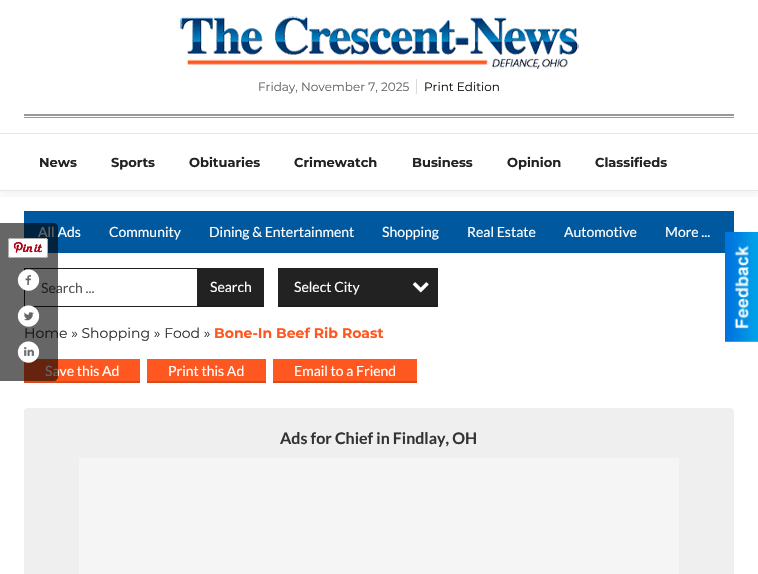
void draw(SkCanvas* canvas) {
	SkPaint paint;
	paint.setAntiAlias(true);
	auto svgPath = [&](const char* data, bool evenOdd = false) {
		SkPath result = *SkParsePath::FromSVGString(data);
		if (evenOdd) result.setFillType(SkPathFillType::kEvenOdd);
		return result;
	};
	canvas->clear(0xffffffff);
	canvas->drawImageRect(SkImages::DeferredFromEncodedData(SkData::MakeFromFileName("img1.png")), SkRect::MakeXYWH(180, 16, 399, 53), SkSamplingOptions());
	SkFont f1(fontMgr->matchFamilyStyle("Montserrat", SkFontStyle::Normal()), 12);
	f1.setSubpixel(true);
	paint.setColor(0xff666666);
	canvas->drawString("Friday, November 7, 2025", 258, 91, f1, paint);
	paint.setColor(0xffdadada);
	canvas->drawRect(SkRect::MakeXYWH(416, 79, 1, 15), paint);
	paint.setColor(0xff111111);
	canvas->drawString("Print Edition", 424, 91, f1, paint);
	paint.setColor(0xff999999);
	canvas->drawRect(SkRect::MakeXYWH(24, 114, 710, 2), paint);
	canvas->drawRect(SkRect::MakeXYWH(24, 117, 710, 1), paint);
	paint.setColor(0xff00599f);
	canvas->drawRect(SkRect::MakeXYWH(24, 211, 710, 42), paint);
	canvas->save();
	canvas->clipRect(SkRect::MakeXYWH(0, 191, 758, 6));
	paint.setColor(0x0d000000);
	paint.setMaskFilter(SkMaskFilter::MakeBlur(kNormal_SkBlurStyle, 5));
	canvas->drawRect(SkRect::MakeXYWH(0, 138, 758, 58), paint);
	paint.setMaskFilter(nullptr);
	canvas->restore();
	paint.setColor(0xffe6e6e6);
	canvas->drawRect(SkRect::MakeXYWH(0, 133, 758, 1), paint);
	canvas->drawRect(SkRect::MakeXYWH(0, 190, 758, 1), paint);
	SkFont f2(fontMgr->matchFamilyStyle("Montserrat", SkFontStyle::Bold()), 13);
	f2.setSubpixel(true);
	paint.setColor(0xff222222);
	canvas->drawString("News", 39, 167, f2, paint);
	canvas->drawString("Sports", 111, 167, f2, paint);
	canvas->drawString("Obituaries", 189, 167, f2, paint);
	canvas->drawString("Crimewatch", 294, 167, f2, paint);
	canvas->drawString("Business", 412, 167, f2, paint);
	canvas->drawString("Opinion", 507, 167, f2, paint);
	canvas->drawString("Classifieds", 595, 167, f2, paint);
	SkFont f3(fontMgr->matchFamilyStyle("Lato", SkFontStyle::Normal()), 14);
	f3.setSubpixel(true);
	paint.setColor(0xffffffff);
	canvas->drawString("All Ads", 38, 237, f3, paint);
	paint.setStroke(true);
	paint.setStrokeWidth(1);
	paint.setColor(0xff222222);
	canvas->drawRect(SkRect::MakeXYWH(24.5, 268.5, 173, 38), paint);
	paint.setStroke(false);
	paint.setColor(0xff555555);
	canvas->drawString("Search ...", 41, 293, f3, paint);
	SkFont f4(fontMgr->matchFamilyStyle("Montserrat", SkFontStyle::Normal()), 14);
	f4.setSubpixel(true);
	paint.setColor(0xff333333);
	canvas->drawString("Home » Shopping » Food »", 24, 338, f4, paint);
	paint.setColor(0xffff5720);
	canvas->drawRect(SkRect::MakeXYWH(24, 359, 116, 22), paint);
	paint.setColor(0xffffffff);
	canvas->drawString("Save this Ad", 45, 376, f3, paint);
	paint.setColor(0x99000000);
	canvas->drawPath(svgPath("M0 223H54C56 223 58 225 58 227V377C58 379 56 381 54 381H0Z"), paint);
	canvas->drawImageRect(SkImages::DeferredFromEncodedData(SkData::MakeFromFileName("img2.png")), SkRect::MakeXYWH(8, 238, 40, 20), SkSamplingOptions());
	canvas->drawImageRect(SkImages::DeferredFromEncodedData(SkData::MakeFromFileName("img3.png")), SkRect::MakeXYWH(17, 269, 23, 22), SkSamplingOptions());
	canvas->drawImageRect(SkImages::DeferredFromEncodedData(SkData::MakeFromFileName("img4.png")), SkRect::MakeXYWH(17, 305, 23, 22), SkSamplingOptions());
	canvas->drawImageRect(SkImages::DeferredFromEncodedData(SkData::MakeFromFileName("img5.png")), SkRect::MakeXYWH(17, 341, 23, 22), SkSamplingOptions());
	paint.setColor(0xffffffff);
	canvas->drawString("Community", 109, 237, f3, paint);
	canvas->drawString("Dining & Entertainment", 209, 237, f3, paint);
	canvas->drawString("Shopping", 382, 237, f3, paint);
	canvas->drawString("Real Estate", 467, 237, f3, paint);
	canvas->drawString("Automotive", 564, 237, f3, paint);
	canvas->drawString("More ...", 665, 237, f3, paint);
	paint.setColor(0xff222222);
	canvas->drawRect(SkRect::MakeXYWH(198, 268, 66, 37), paint);
	paint.setColor(0xff1d1d1d);
	canvas->drawRect(SkRect::MakeXYWH(198, 305, 66, 2), paint);
	paint.setColor(0xffffffff);
	canvas->drawString("Search", 210, 292, f3, paint);
	paint.setColor(0xff222222);
	canvas->drawRect(SkRect::MakeXYWH(278, 268, 160, 37), paint);
	paint.setColor(0xff1d1d1d);
	canvas->drawRect(SkRect::MakeXYWH(278, 305, 160, 2), paint);
	paint.setColor(0xffffffff);
	canvas->drawString("Select City", 294, 292, f3, paint);
	canvas->drawImageRect(SkImages::DeferredFromEncodedData(SkData::MakeFromFileName("img6.png")), SkRect::MakeXYWH(412, 282, 17, 11), SkSamplingOptions());
	SkFont f5(fontMgr->matchFamilyStyle("Montserrat", SkFontStyle::Bold()), 14);
	f5.setSubpixel(true);
	paint.setColor(0xffff5720);
	canvas->drawString("Bone-In Beef Rib Roast", 214, 338, f5, paint);
	paint.setColor(0xffd94a1b);
	canvas->drawRect(SkRect::MakeXYWH(24, 381, 116, 2), paint);
	paint.setColor(0xffff5720);
	canvas->drawRect(SkRect::MakeXYWH(147, 359, 119, 22), paint);
	paint.setColor(0xffd94a1b);
	canvas->drawRect(SkRect::MakeXYWH(147, 381, 119, 2), paint);
	paint.setColor(0xffffffff);
	canvas->drawString("Print this Ad", 168, 376, f3, paint);
	paint.setColor(0xffff5720);
	canvas->drawRect(SkRect::MakeXYWH(273, 359, 144, 22), paint);
	paint.setColor(0xffd94a1b);
	canvas->drawRect(SkRect::MakeXYWH(273, 381, 144, 2), paint);
	paint.setColor(0xffffffff);
	canvas->drawString("Email to a Friend", 294, 376, f3, paint);
	paint.setColor(0xffefefef);
	canvas->drawRoundRect(SkRect::MakeXYWH(24, 408, 710, 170), 4, 4, paint);
	SkFont f6(fontMgr->matchFamilyStyle("Lato", SkFontStyle::Bold()), 16);
	f6.setSubpixel(true);
	paint.setColor(0xff333333);
	canvas->drawString("Ads for Chief in Findlay, OH", 280, 444, f6, paint);
	paint.setColor(0xfff5f5f5);
	canvas->drawRect(SkRect::MakeXYWH(79, 458, 600, 116), paint);
	canvas->drawImageRect(SkImages::DeferredFromEncodedData(SkData::MakeFromFileName("img7.png")), SkRect::MakeXYWH(725, 232, 33, 110), SkSamplingOptions());
}
